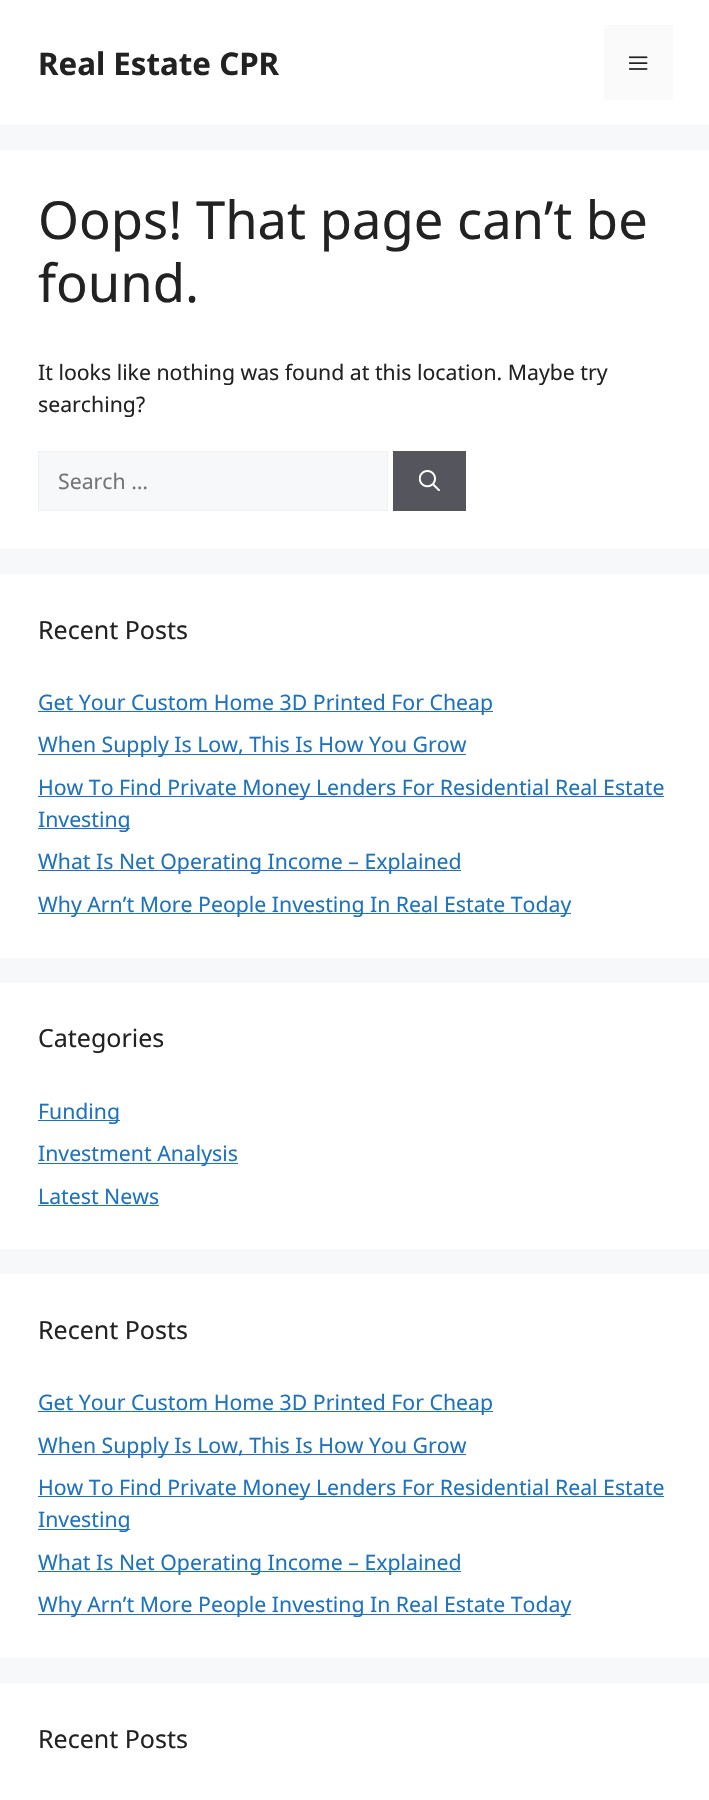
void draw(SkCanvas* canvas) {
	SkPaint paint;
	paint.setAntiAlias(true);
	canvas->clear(0xfff7f8f9);
	paint.setColor(0xffffffff);
	canvas->drawRect(SkRect::MakeXYWH(0, 0, 709, 125), paint);
	SkFont f1(fontMgr->matchFamilyStyle("Noto Sans", SkFontStyle::Bold()), 31.25);
	f1.setSubpixel(true);
	paint.setColor(0xff222222);
	canvas->drawString("Real Estate CPR", 38, 75, f1, paint);
	paint.setColor(0xfffafafa);
	canvas->drawRect(SkRect::MakeXYWH(604, 25, 69, 75), paint);
	canvas->drawImageRect(SkImages::DeferredFromEncodedData(SkData::MakeFromFileName("img1.png")), SkRect::MakeXYWH(629, 56, 19, 14), SkSamplingOptions());
	paint.setColor(0xffffffff);
	canvas->drawRect(SkRect::MakeXYWH(0, 150, 709, 399), paint);
	SkFont f2(fontMgr->matchFamilyStyle("Noto Sans", SkFontStyle::Normal()), 52.5);
	f2.setSubpixel(true);
	paint.setColor(0xff222222);
	canvas->drawString("Oops! That page can’t be", 38, 239, f2, paint);
	canvas->drawString("found.", 38, 302, f2, paint);
	SkFont f3(fontMgr->matchFamilyStyle("Noto Sans", SkFontStyle::Normal()), 21.25);
	f3.setSubpixel(true);
	canvas->drawString("It looks like nothing was found at this location. Maybe try", 38, 380, f3, paint);
	canvas->drawString("searching?", 38, 412, f3, paint);
	paint.setColor(0xfff7f8f9);
	canvas->drawRect(SkRect::MakeXYWH(38.5, 451.5, 349, 59), paint);
	paint.setStroke(true);
	paint.setStrokeWidth(1);
	paint.setColor(0xfff0f0f0);
	canvas->drawRect(SkRect::MakeXYWH(38.5, 451.5, 349, 59), paint);
	paint.setStroke(false);
	paint.setColor(0xff757575);
	canvas->drawString("Search …", 58, 489, f3, paint);
	paint.setColor(0xff55555e);
	canvas->drawRect(SkRect::MakeXYWH(393, 451, 73, 60), paint);
	canvas->drawImageRect(SkImages::DeferredFromEncodedData(SkData::MakeFromFileName("img2.png")), SkRect::MakeXYWH(419, 470, 21, 21), SkSamplingOptions());
	paint.setColor(0xffffffff);
	canvas->drawRect(SkRect::MakeXYWH(0, 574, 709, 384), paint);
	SkFont f4(fontMgr->matchFamilyStyle("Noto Sans", SkFontStyle::Normal()), 25);
	f4.setSubpixel(true);
	paint.setColor(0xff222222);
	canvas->drawString("Recent Posts", 38, 639, f4, paint);
	paint.setColor(0xff1e73be);
	canvas->drawRect(SkRect::MakeXYWH(38, 711, 455, 1), paint);
	canvas->drawString("Get Your Custom Home 3D Printed For Cheap", 38, 710, f3, paint);
	canvas->drawRect(SkRect::MakeXYWH(38, 754, 428, 1), paint);
	canvas->drawString("When Supply Is Low, This Is How You Grow", 38, 752, f3, paint);
	canvas->drawRect(SkRect::MakeXYWH(38, 796, 626, 1), paint);
	canvas->drawString("How To Find Private Money Lenders For Residential Real Estate", 38, 795, f3, paint);
	canvas->drawRect(SkRect::MakeXYWH(38, 828, 92, 1), paint);
	canvas->drawString("Investing", 38, 827, f3, paint);
	canvas->drawRect(SkRect::MakeXYWH(38, 870, 423, 1), paint);
	canvas->drawString("What Is Net Operating Income – Explained", 38, 869, f3, paint);
	canvas->drawRect(SkRect::MakeXYWH(38, 913, 533, 1), paint);
	canvas->drawString("Why Arn’t More People Investing In Real Estate Today", 38, 912, f3, paint);
	paint.setColor(0xffffffff);
	canvas->drawRect(SkRect::MakeXYWH(0, 983, 709, 266), paint);
	paint.setColor(0xff222222);
	canvas->drawString("Categories", 38, 1047, f4, paint);
	paint.setColor(0xff1e73be);
	canvas->drawRect(SkRect::MakeXYWH(38, 1120, 82, 1), paint);
	canvas->drawString("Funding", 38, 1119, f3, paint);
	canvas->drawRect(SkRect::MakeXYWH(38, 1163, 200, 1), paint);
	canvas->drawString("Investment Analysis", 38, 1161, f3, paint);
	canvas->drawString("Latest News", 38, 1204, f3, paint);
	canvas->drawRect(SkRect::MakeXYWH(38, 1205, 121, 1), paint);
	paint.setColor(0xffffffff);
	canvas->drawRect(SkRect::MakeXYWH(0, 1274, 709, 384), paint);
	paint.setColor(0xff222222);
	canvas->drawString("Recent Posts", 38, 1339, f4, paint);
	paint.setColor(0xff1e73be);
	canvas->drawRect(SkRect::MakeXYWH(38, 1411, 455, 1), paint);
	canvas->drawString("Get Your Custom Home 3D Printed For Cheap", 38, 1410, f3, paint);
	canvas->drawRect(SkRect::MakeXYWH(38, 1454, 428, 1), paint);
	canvas->drawString("When Supply Is Low, This Is How You Grow", 38, 1453, f3, paint);
	canvas->drawRect(SkRect::MakeXYWH(38, 1496, 626, 1), paint);
	canvas->drawString("How To Find Private Money Lenders For Residential Real Estate", 38, 1495, f3, paint);
	canvas->drawRect(SkRect::MakeXYWH(38, 1529, 92, 1), paint);
	canvas->drawString("Investing", 38, 1527, f3, paint);
	canvas->drawRect(SkRect::MakeXYWH(38, 1571, 423, 1), paint);
	canvas->drawString("What Is Net Operating Income – Explained", 38, 1570, f3, paint);
	canvas->drawRect(SkRect::MakeXYWH(38, 1614, 533, 1), paint);
	canvas->drawString("Why Arn’t More People Investing In Real Estate Today", 38, 1612, f3, paint);
	paint.setColor(0xffffffff);
	canvas->drawRect(SkRect::MakeXYWH(0, 1683, 709, 117), paint);
	paint.setColor(0xff222222);
	canvas->drawString("Recent Posts", 38, 1748, f4, paint);
}
